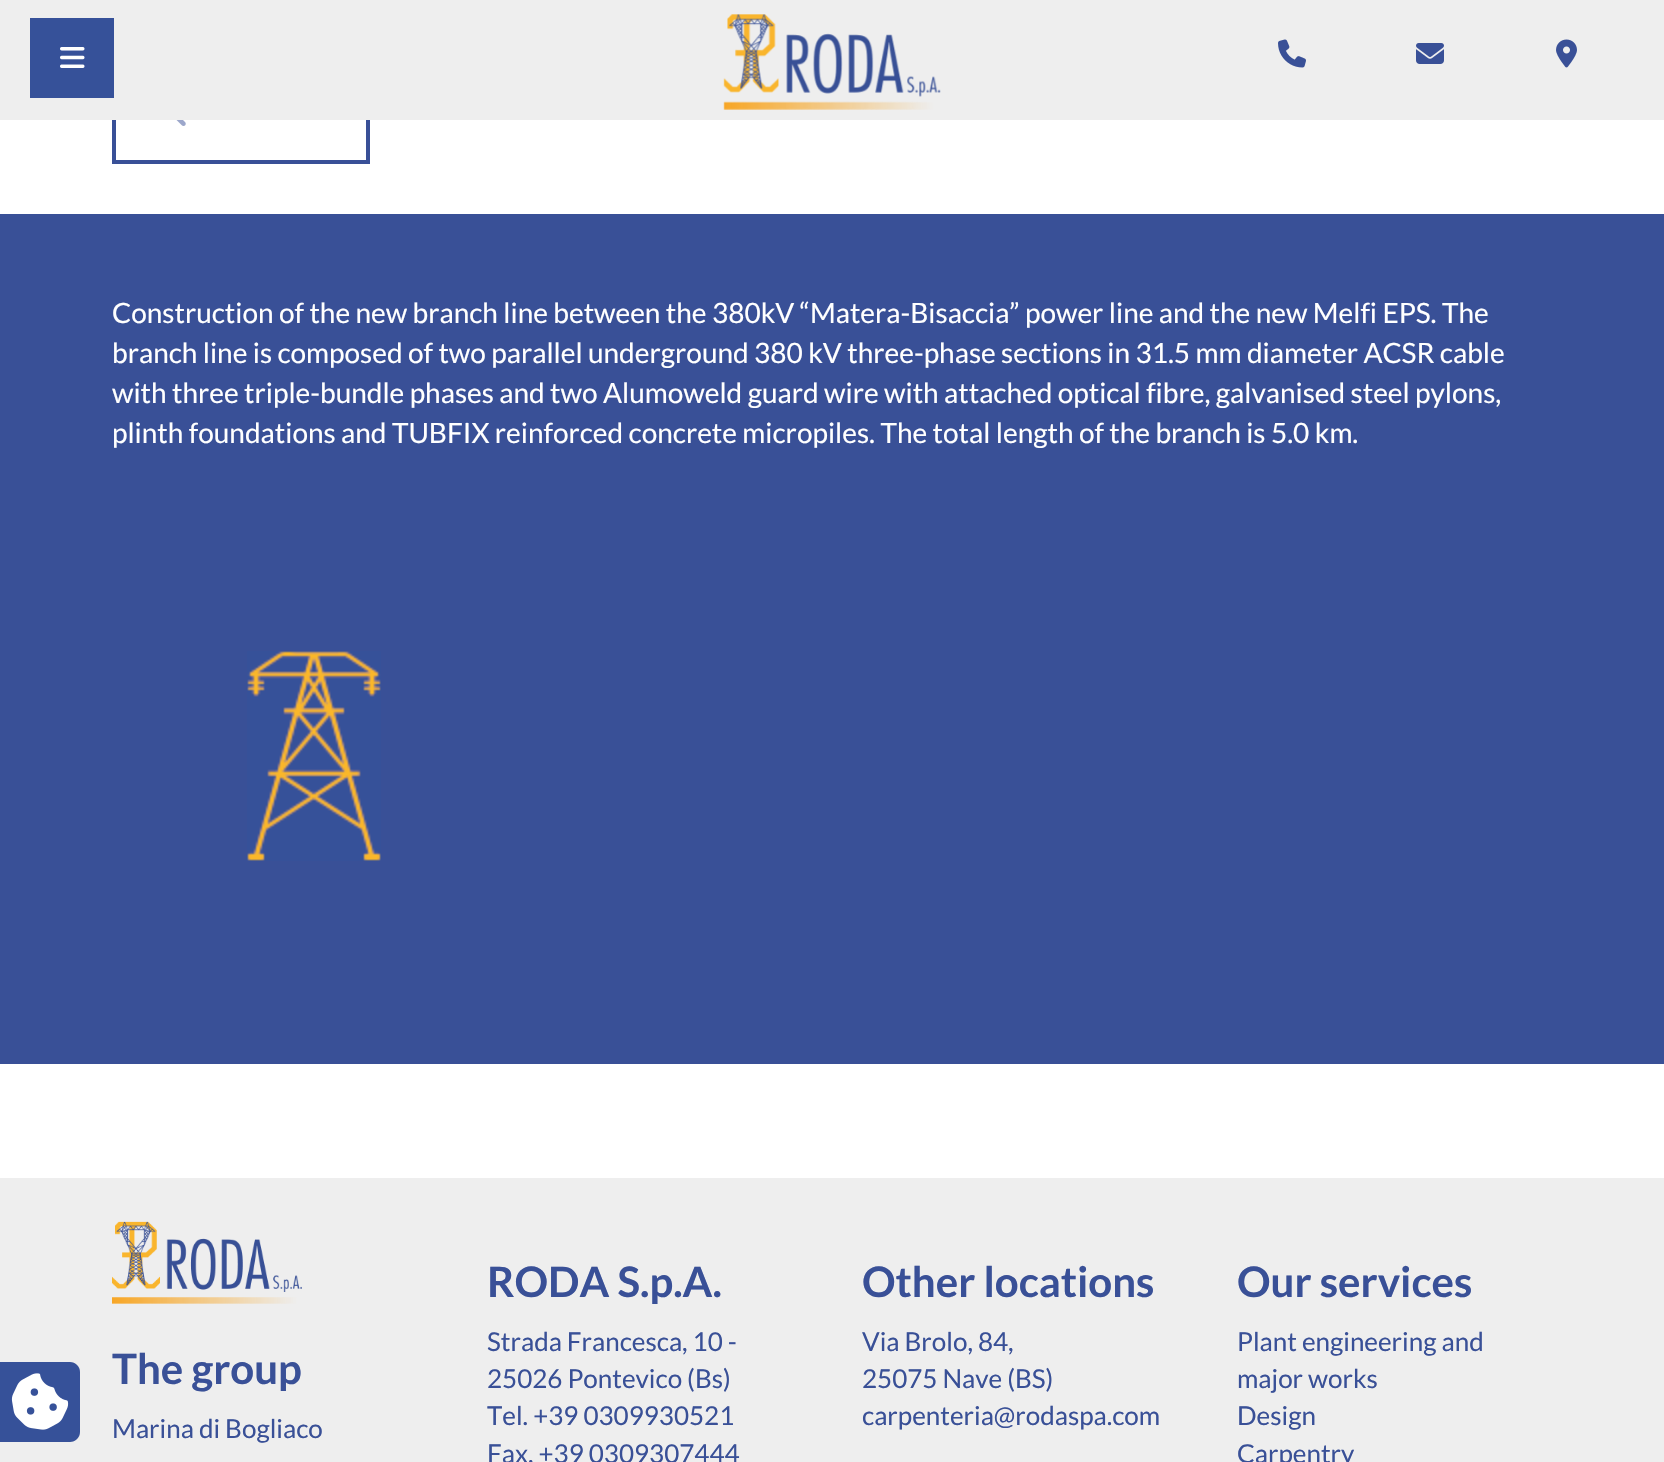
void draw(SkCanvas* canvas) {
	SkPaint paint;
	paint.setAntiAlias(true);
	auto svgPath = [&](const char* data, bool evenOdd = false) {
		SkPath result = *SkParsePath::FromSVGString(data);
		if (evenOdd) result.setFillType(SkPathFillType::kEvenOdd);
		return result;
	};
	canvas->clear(0xffffffff);
	paint.setStroke(true);
	paint.setStrokeWidth(4);
	paint.setColor(0xff395097);
	canvas->drawRect(SkRect::MakeXYWH(114, 66, 254, 96), paint);
	paint.setStroke(false);
	paint.setColor(0xffeeeeee);
	canvas->drawRect(SkRect::MakeXYWH(0, 0, 1664, 120), paint);
	paint.setColor(0xff365199);
	canvas->drawRect(SkRect::MakeXYWH(30, 18, 84, 80), paint);
	canvas->drawImageRect(SkImages::DeferredFromEncodedData(SkData::MakeFromFileName("img1.png")), SkRect::MakeXYWH(60, 47, 25, 21), SkSamplingOptions());
	canvas->drawImageRect(SkImages::DeferredFromEncodedData(SkData::MakeFromFileName("img2.png")), SkRect::MakeXYWH(723, 14, 218, 96), SkSamplingOptions());
	canvas->drawImageRect(SkImages::DeferredFromEncodedData(SkData::MakeFromFileName("img3.png")), SkRect::MakeXYWH(1278, 39, 28, 29), SkSamplingOptions());
	canvas->drawImageRect(SkImages::DeferredFromEncodedData(SkData::MakeFromFileName("img4.png")), SkRect::MakeXYWH(1416, 43, 28, 21), SkSamplingOptions());
	canvas->drawImageRect(SkImages::DeferredFromEncodedData(SkData::MakeFromFileName("img5.png")), SkRect::MakeXYWH(1556, 39, 21, 29), SkSamplingOptions());
	canvas->drawImageRect(SkImages::DeferredFromEncodedData(SkData::MakeFromFileName("img6.png")), SkRect::MakeXYWH(176, 120, 10, 6), SkSamplingOptions());
	paint.setColor(0xff395097);
	canvas->drawRect(SkRect::MakeXYWH(0, 214, 1664, 850), paint);
	SkFont f1(fontMgr->matchFamilyStyle("Lato", SkFontStyle::Normal()), 28);
	f1.setSubpixel(true);
	paint.setColor(0xffffffff);
	canvas->drawString("Construction of the new branch line between the 380kV “Matera-Bisaccia” power line and the new Melfi EPS. The", 112, 323, f1, paint);
	canvas->drawString("branch line is composed of two parallel underground 380 kV three-phase sections in 31.5 mm diameter ACSR cable", 112, 363, f1, paint);
	canvas->drawString("with three triple-bundle phases and two Alumoweld guard wire with attached optical fibre, galvanised steel pylons,", 112, 403, f1, paint);
	canvas->drawString("plinth foundations and TUBFIX reinforced concrete micropiles. The total length of the branch is 5.0 km.", 112, 443, f1, paint);
	canvas->drawImageRect(SkImages::DeferredFromEncodedData(SkData::MakeFromFileName("img7.png")), SkRect::MakeXYWH(247, 651, 134, 210), SkSamplingOptions());
	paint.setColor(0xffeeeeee);
	canvas->drawRect(SkRect::MakeXYWH(0, 1178, 1664, 284), paint);
	paint.setColor(0xff365199);
	canvas->drawPath(svgPath("M0 1362H70C75.5 1362 80 1366.5 80 1372V1432C80 1437.5 75.5 1442 70 1442H0Z"), paint);
	canvas->drawImageRect(SkImages::DeferredFromEncodedData(SkData::MakeFromFileName("img8.png")), SkRect::MakeXYWH(11, 1373, 58, 57), SkSamplingOptions());
	canvas->drawImageRect(SkImages::DeferredFromEncodedData(SkData::MakeFromFileName("img9.png")), SkRect::MakeXYWH(112, 1221, 190, 83), SkSamplingOptions());
	SkFont f2(fontMgr->matchFamilyStyle("Lato", SkFontStyle::Bold()), 42);
	f2.setSubpixel(true);
	paint.setColor(0xff395097);
	canvas->drawString("The group", 112, 1384, f2, paint);
	SkFont f3(fontMgr->matchFamilyStyle("Lato", SkFontStyle::Normal()), 26);
	f3.setSubpixel(true);
	canvas->drawString("Marina di Bogliaco", 112, 1438, f3, paint);
	canvas->drawString("RODA S.p.A.", 487, 1297, f2, paint);
	canvas->drawString("Strada Francesca, 10 -", 487, 1351, f3, paint);
	canvas->drawString("25026 Pontevico (Bs)", 487, 1388, f3, paint);
	canvas->drawString("Tel. +39 0309930521", 487, 1425, f3, paint);
	canvas->drawString("Fax. +39 0309307444", 487, 1463, f3, paint);
	canvas->drawString("Other locations", 862, 1297, f2, paint);
	canvas->drawString("Via Brolo, 84,", 862, 1351, f3, paint);
	canvas->drawString("25075 Nave (BS)", 862, 1388, f3, paint);
	canvas->drawString("carpenteria@rodaspa.com", 862, 1425, f3, paint);
	canvas->drawString("Our services", 1237, 1297, f2, paint);
	canvas->drawString("Plant engineering and", 1237, 1351, f3, paint);
	canvas->drawString("major works", 1237, 1388, f3, paint);
	canvas->drawString("Design", 1237, 1425, f3, paint);
	canvas->drawString("Carpentry", 1237, 1463, f3, paint);
}
